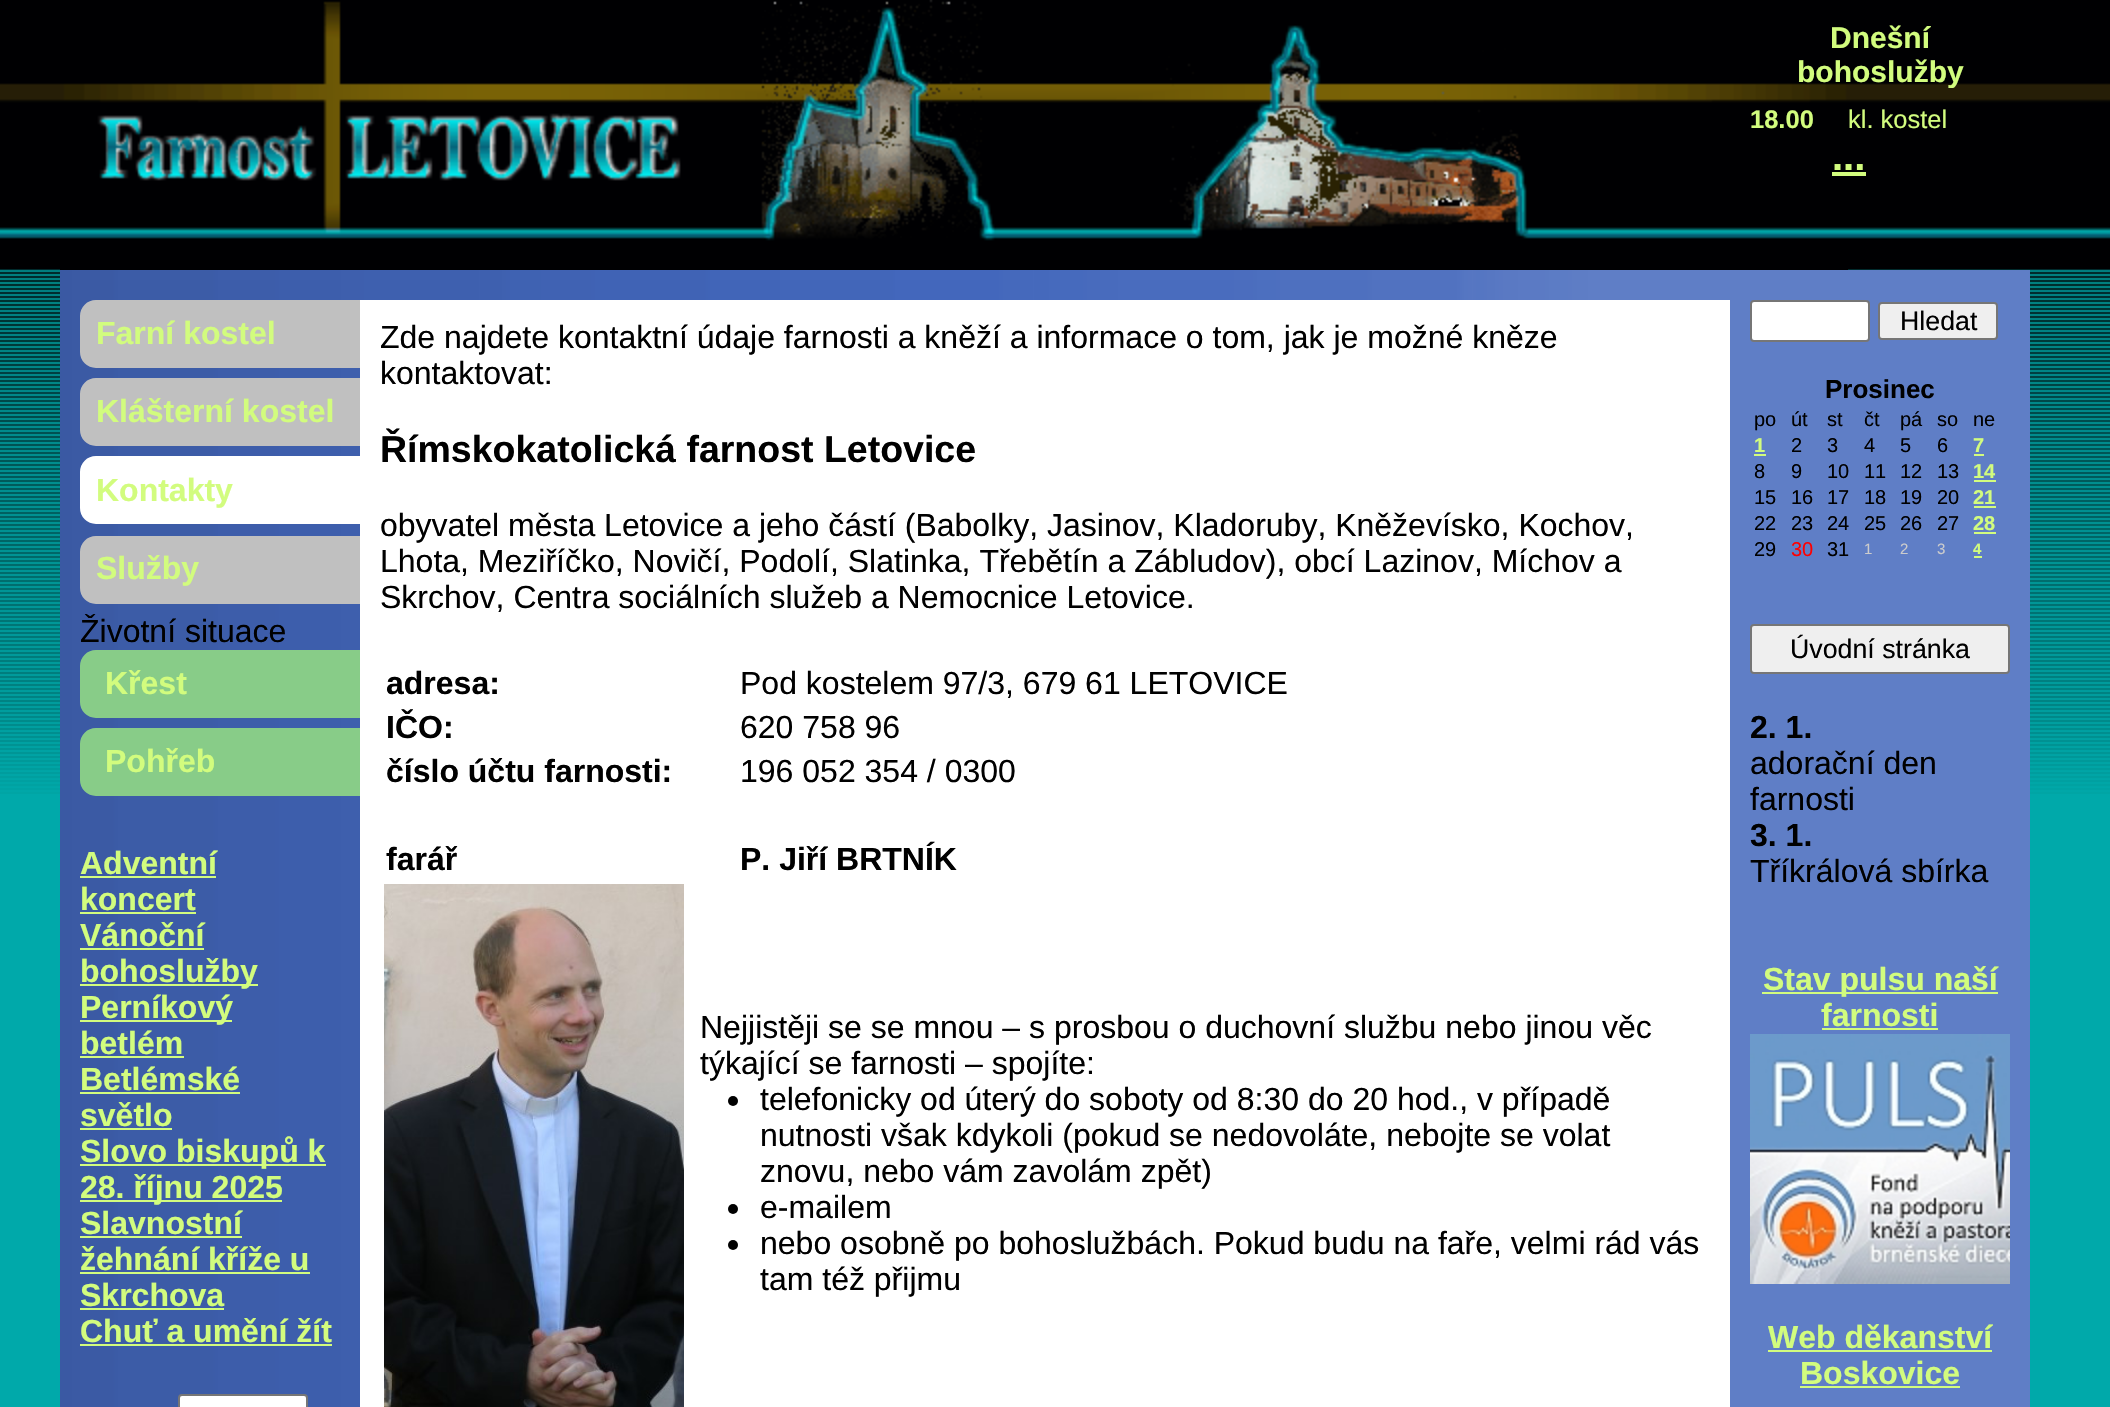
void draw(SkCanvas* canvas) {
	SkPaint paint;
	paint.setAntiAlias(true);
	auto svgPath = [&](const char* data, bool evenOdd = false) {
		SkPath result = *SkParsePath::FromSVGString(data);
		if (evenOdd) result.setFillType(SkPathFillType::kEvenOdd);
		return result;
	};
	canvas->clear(0xff00a9aa);
	canvas->drawImageRect(SkImages::DeferredFromEncodedData(SkData::MakeFromFileName("img1.png")), SkRect::MakeXYWH(0, 0, 2110, 794), SkSamplingOptions());
	canvas->drawImageRect(SkImages::DeferredFromEncodedData(SkData::MakeFromFileName("img2.png")), SkRect::MakeXYWH(1848, 0, 182, 270), SkSamplingOptions());
	canvas->drawImageRect(SkImages::DeferredFromEncodedData(SkData::MakeFromFileName("img3.png")), SkRect::MakeXYWH(60, 0, 1788, 270), SkSamplingOptions());
	SkFont f1(fontMgr->matchFamilyStyle("Liberation Sans", SkFontStyle::Bold()), 30);
	f1.setSubpixel(true);
	paint.setColor(0xffd2fc7e);
	canvas->drawString("Dnešní", 1830, 48, f1, paint);
	canvas->save();
	canvas->clipRect(SkRect::MakeXYWH(1750, 20, 260, 68));
	canvas->drawString("bohoslužby", 1797, 82, f1, paint);
	canvas->restore();
	SkFont f2(fontMgr->matchFamilyStyle("Liberation Sans", SkFontStyle::Bold()), 25.5);
	f2.setSubpixel(true);
	canvas->drawString("18.00", 1750, 128, f2, paint);
	SkFont f3(fontMgr->matchFamilyStyle("Liberation Sans", SkFontStyle::Normal()), 25.5);
	f3.setSubpixel(true);
	canvas->drawString("kl. kostel", 1848, 128, f3, paint);
	SkFont f4(fontMgr->matchFamilyStyle("Liberation Sans", SkFontStyle::Bold()), 40);
	f4.setSubpixel(true);
	canvas->drawString("...", 1832, 170, f4, paint);
	canvas->drawRect(SkRect::MakeXYWH(1832, 172, 34, 4), paint);
	canvas->drawImageRect(SkImages::DeferredFromEncodedData(SkData::MakeFromFileName("img5.png")), SkRect::MakeXYWH(60, 270, 1970, 1137), SkSamplingOptions());
	paint.setColor(0xffffffff);
	canvas->drawRoundRect(SkRect::MakeXYWH(1751, 301, 118, 40), 3, 3, paint);
	paint.setStroke(true);
	paint.setStrokeWidth(2);
	paint.setColor(0xff767676);
	canvas->drawRoundRect(SkRect::MakeXYWH(1751, 301, 118, 40), 3, 3, paint);
	paint.setStroke(false);
	paint.setColor(0xffefefef);
	canvas->drawRoundRect(SkRect::MakeXYWH(1879, 303, 118, 36), 3, 3, paint);
	paint.setStroke(true);
	paint.setColor(0xff767676);
	canvas->drawRoundRect(SkRect::MakeXYWH(1879, 303, 118, 36), 3, 3, paint);
	SkFont f5(fontMgr->matchFamilyStyle("Liberation Sans", SkFontStyle::Normal()), 26.75);
	f5.setSubpixel(true);
	paint.setStroke(false);
	paint.setColor(0xff000000);
	canvas->drawString("Hledat", 1900, 330, f5, paint);
	SkFont f6(fontMgr->matchFamilyStyle("Liberation Sans", SkFontStyle::Bold()), 26);
	f6.setSubpixel(true);
	canvas->drawString("Prosinec", 1825, 398, f6, paint);
	SkFont f7(fontMgr->matchFamilyStyle("Liberation Sans", SkFontStyle::Normal()), 20);
	f7.setSubpixel(true);
	canvas->drawString("po", 1754, 426, f7, paint);
	canvas->drawString("út", 1791, 426, f7, paint);
	canvas->drawString("st", 1827, 426, f7, paint);
	canvas->drawString("čt", 1864, 426, f7, paint);
	canvas->drawString("pá", 1900, 426, f7, paint);
	canvas->drawString("so", 1937, 426, f7, paint);
	canvas->drawString("ne", 1973, 426, f7, paint);
	SkFont f8(fontMgr->matchFamilyStyle("Liberation Sans", SkFontStyle::Bold()), 20);
	f8.setSubpixel(true);
	paint.setColor(0xffd2fc7e);
	canvas->drawString("1", 1754, 452, f8, paint);
	canvas->drawRect(SkRect::MakeXYWH(1754, 454, 12, 2), paint);
	paint.setColor(0xff000000);
	canvas->drawString("2", 1791, 452, f7, paint);
	canvas->drawString("3", 1827, 452, f7, paint);
	canvas->drawString("4", 1864, 452, f7, paint);
	canvas->drawString("5", 1900, 452, f7, paint);
	canvas->drawString("6", 1937, 452, f7, paint);
	paint.setColor(0xffd2fc7e);
	canvas->drawString("7", 1973, 452, f8, paint);
	canvas->drawRect(SkRect::MakeXYWH(1974, 454, 10, 2), paint);
	paint.setColor(0xff000000);
	canvas->drawString("8", 1754, 478, f7, paint);
	canvas->drawString("9", 1791, 478, f7, paint);
	canvas->drawString("10", 1827, 478, f7, paint);
	canvas->drawString("11", 1864, 478, f7, paint);
	canvas->drawString("12", 1900, 478, f7, paint);
	canvas->drawString("13", 1937, 478, f7, paint);
	paint.setColor(0xffd2fc7e);
	canvas->drawString("14", 1973, 478, f8, paint);
	canvas->drawRect(SkRect::MakeXYWH(1974, 480, 22, 2), paint);
	paint.setColor(0xff000000);
	canvas->drawString("15", 1754, 504, f7, paint);
	canvas->drawString("16", 1791, 504, f7, paint);
	canvas->drawString("17", 1827, 504, f7, paint);
	canvas->drawString("18", 1864, 504, f7, paint);
	canvas->drawString("19", 1900, 504, f7, paint);
	canvas->drawString("20", 1937, 504, f7, paint);
	paint.setColor(0xffd2fc7e);
	canvas->drawString("21", 1973, 504, f8, paint);
	canvas->drawRect(SkRect::MakeXYWH(1974, 506, 22, 2), paint);
	paint.setColor(0xff000000);
	canvas->drawString("22", 1754, 530, f7, paint);
	canvas->drawString("23", 1791, 530, f7, paint);
	canvas->drawString("24", 1827, 530, f7, paint);
	canvas->drawString("25", 1864, 530, f7, paint);
	canvas->drawString("26", 1900, 530, f7, paint);
	canvas->drawString("27", 1937, 530, f7, paint);
	paint.setColor(0xffd2fc7e);
	canvas->drawString("28", 1973, 530, f8, paint);
	canvas->drawRect(SkRect::MakeXYWH(1974, 532, 22, 2), paint);
	paint.setColor(0xff000000);
	canvas->drawString("29", 1754, 556, f7, paint);
	paint.setColor(0xffff0000);
	canvas->drawString("30", 1791, 556, f7, paint);
	paint.setColor(0xff000000);
	canvas->drawString("31", 1827, 556, f7, paint);
	SkFont f9(fontMgr->matchFamilyStyle("Liberation Sans", SkFontStyle::Normal()), 15);
	f9.setSubpixel(true);
	paint.setColor(0xffcccccc);
	canvas->drawString("1", 1864, 554, f9, paint);
	canvas->drawString("2", 1900, 554, f9, paint);
	canvas->drawString("3", 1937, 554, f9, paint);
	SkFont f10(fontMgr->matchFamilyStyle("Liberation Sans", SkFontStyle::Bold()), 15);
	f10.setSubpixel(true);
	paint.setColor(0xffd2fc7e);
	canvas->drawString("4", 1973, 554, f10, paint);
	canvas->drawRect(SkRect::MakeXYWH(1974, 556, 8, 2), paint);
	paint.setColor(0xffefefef);
	canvas->drawRoundRect(SkRect::MakeXYWH(1751, 625, 258, 48), 3, 3, paint);
	paint.setStroke(true);
	paint.setColor(0xff767676);
	canvas->drawRoundRect(SkRect::MakeXYWH(1751, 625, 258, 48), 3, 3, paint);
	paint.setStroke(false);
	paint.setColor(0xff000000);
	canvas->drawString("Úvodní stránka", 1790, 658, f5, paint);
	SkFont f11(fontMgr->matchFamilyStyle("Liberation Sans", SkFontStyle::Bold()), 32);
	f11.setSubpixel(true);
	canvas->drawString("2. 1.", 1750, 738, f11, paint);
	SkFont f12(fontMgr->matchFamilyStyle("Liberation Sans", SkFontStyle::Normal()), 32);
	f12.setSubpixel(true);
	canvas->drawString("adorační den", 1750, 774, f12, paint);
	canvas->drawString("farnosti", 1750, 810, f12, paint);
	canvas->drawString("3. 1.", 1750, 846, f11, paint);
	canvas->drawString("Tříkrálová sbírka", 1750, 882, f12, paint);
	paint.setColor(0xffd2fc7e);
	canvas->drawRect(SkRect::MakeXYWH(1762, 992, 236, 2), paint);
	canvas->drawString("Stav pulsu naší", 1763, 990, f11, paint);
	canvas->drawString("farnosti", 1821, 1026, f11, paint);
	canvas->drawRect(SkRect::MakeXYWH(1822, 1028, 116, 2), paint);
	canvas->drawImageRect(SkImages::DeferredFromEncodedData(SkData::MakeFromFileName("img4.png")), SkRect::MakeXYWH(1750, 1034, 260, 250), SkSamplingOptions());
	canvas->drawString("Web děkanství", 1768, 1348, f11, paint);
	canvas->drawRect(SkRect::MakeXYWH(1768, 1350, 224, 2), paint);
	canvas->drawString("Boskovice", 1800, 1384, f11, paint);
	canvas->drawRect(SkRect::MakeXYWH(1800, 1386, 160, 2), paint);
	paint.setColor(0xffc0c0c0);
	canvas->drawPath(svgPath("M96 308H352V360H96C91.5 360 88 356.5 88 352V316C88 311.5 91.5 308 96 308Z"), paint);
	paint.setStroke(true);
	paint.setStrokeWidth(16);
	canvas->drawPath(svgPath("M96 308H352V360H96C91.5 360 88 356.5 88 352V316C88 311.5 91.5 308 96 308Z"), paint);
	paint.setStroke(false);
	paint.setColor(0xffd2fc7e);
	canvas->drawString("Farní kostel", 96, 344, f11, paint);
	paint.setColor(0xffc0c0c0);
	canvas->drawPath(svgPath("M96 386H352V438H96C91.5 438 88 434.5 88 430V394C88 389.5 91.5 386 96 386Z"), paint);
	paint.setStroke(true);
	canvas->drawPath(svgPath("M96 386H352V438H96C91.5 438 88 434.5 88 430V394C88 389.5 91.5 386 96 386Z"), paint);
	paint.setStroke(false);
	paint.setColor(0xffd2fc7e);
	canvas->drawString("Klášterní kostel", 96, 422, f11, paint);
	paint.setColor(0xffffffff);
	canvas->drawPath(svgPath("M96 464H352V516H96C91.5 516 88 512.5 88 508V472C88 467.5 91.5 464 96 464Z"), paint);
	paint.setStroke(true);
	canvas->drawPath(svgPath("M96 464H352V516H96C91.5 516 88 512.5 88 508V472C88 467.5 91.5 464 96 464Z"), paint);
	paint.setStroke(false);
	paint.setColor(0xffd2fc7e);
	canvas->drawString("Kontakty", 96, 501, f11, paint);
	paint.setColor(0xffc0c0c0);
	canvas->drawPath(svgPath("M96 544H352V596H96C91.5 596 88 592.5 88 588V552C88 547.5 91.5 544 96 544Z"), paint);
	paint.setStroke(true);
	canvas->drawPath(svgPath("M96 544H352V596H96C91.5 596 88 592.5 88 588V552C88 547.5 91.5 544 96 544Z"), paint);
	paint.setStroke(false);
	paint.setColor(0xffd2fc7e);
	canvas->drawString("Služby", 96, 579, f11, paint);
	paint.setColor(0xff000000);
	canvas->drawString("Životní situace", 80, 642, f12, paint);
	paint.setColor(0xff88cc88);
	canvas->drawPath(svgPath("M96 658H352V710H96C91.5 710 88 706.5 88 702V666C88 661.5 91.5 658 96 658Z"), paint);
	paint.setStroke(true);
	canvas->drawPath(svgPath("M96 658H352V710H96C91.5 710 88 706.5 88 702V666C88 661.5 91.5 658 96 658Z"), paint);
	paint.setStroke(false);
	paint.setColor(0xffd2fc7e);
	canvas->drawString("Křest", 105, 694, f11, paint);
	paint.setColor(0xff88cc88);
	canvas->drawPath(svgPath("M96 736H352V788H96C91.5 788 88 784.5 88 780V744C88 739.5 91.5 736 96 736Z"), paint);
	paint.setStroke(true);
	canvas->drawPath(svgPath("M96 736H352V788H96C91.5 788 88 784.5 88 780V744C88 739.5 91.5 736 96 736Z"), paint);
	paint.setStroke(false);
	paint.setColor(0xffd2fc7e);
	canvas->drawString("Pohřeb", 105, 772, f11, paint);
	canvas->drawString("Adventní", 80, 874, f11, paint);
	canvas->drawRect(SkRect::MakeXYWH(80, 876, 136, 2), paint);
	canvas->drawString("koncert", 80, 910, f11, paint);
	canvas->drawRect(SkRect::MakeXYWH(80, 912, 116, 2), paint);
	canvas->drawString("Vánoční", 80, 946, f11, paint);
	canvas->drawRect(SkRect::MakeXYWH(80, 948, 124, 2), paint);
	canvas->drawRect(SkRect::MakeXYWH(80, 984, 178, 2), paint);
	canvas->drawString("bohoslužby", 80, 982, f11, paint);
	canvas->drawRect(SkRect::MakeXYWH(80, 1020, 152, 2), paint);
	canvas->drawString("Perníkový", 80, 1018, f11, paint);
	canvas->drawString("betlém", 80, 1054, f11, paint);
	canvas->drawRect(SkRect::MakeXYWH(80, 1056, 104, 2), paint);
	canvas->drawString("Betlémské", 80, 1090, f11, paint);
	canvas->drawRect(SkRect::MakeXYWH(80, 1092, 160, 2), paint);
	canvas->drawString("světlo", 80, 1126, f11, paint);
	canvas->drawRect(SkRect::MakeXYWH(80, 1128, 92, 2), paint);
	canvas->drawRect(SkRect::MakeXYWH(80, 1164, 246, 2), paint);
	canvas->drawString("Slovo biskupů k", 80, 1162, f11, paint);
	canvas->drawRect(SkRect::MakeXYWH(80, 1200, 202, 2), paint);
	canvas->drawString("28. říjnu 2025", 80, 1198, f11, paint);
	canvas->drawString("Slavnostní", 80, 1234, f11, paint);
	canvas->drawRect(SkRect::MakeXYWH(80, 1236, 162, 2), paint);
	canvas->drawString("žehnání kříže u", 80, 1270, f11, paint);
	canvas->drawRect(SkRect::MakeXYWH(80, 1272, 230, 2), paint);
	canvas->drawString("Skrchova", 80, 1306, f11, paint);
	canvas->drawRect(SkRect::MakeXYWH(80, 1308, 144, 2), paint);
	canvas->drawString("Chuť a umění žít", 80, 1342, f11, paint);
	canvas->drawRect(SkRect::MakeXYWH(80, 1344, 252, 2), paint);
	paint.setColor(0xffffffff);
	canvas->drawRoundRect(SkRect::MakeXYWH(179, 1395, 128, 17), 3, 3, paint);
	paint.setStroke(true);
	paint.setStrokeWidth(2);
	paint.setColor(0xff767676);
	canvas->drawRoundRect(SkRect::MakeXYWH(179, 1395, 128, 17), 3, 3, paint);
	paint.setStroke(false);
	paint.setColor(0xffffffff);
	canvas->drawRect(SkRect::MakeXYWH(360, 300, 1370, 1107), paint);
	paint.setColor(0xff000000);
	canvas->drawString("Zde najdete kontaktní údaje farnosti a kněží a informace o tom, jak je možné kněze", 380, 348, f12, paint);
	canvas->drawString("kontaktovat:", 380, 384, f12, paint);
	SkFont f13(fontMgr->matchFamilyStyle("Liberation Sans", SkFontStyle::Bold()), 37.5);
	f13.setSubpixel(true);
	canvas->drawString("Římskokatolická farnost Letovice", 380, 462, f13, paint);
	canvas->drawString("obyvatel města Letovice a jeho částí (Babolky, Jasinov, Kladoruby, Kněževísko, Kochov,", 380, 536, f12, paint);
	canvas->drawString("Lhota, Meziříčko, Novičí, Podolí, Slatinka, Třebětín a Zábludov), obcí Lazinov, Míchov a", 380, 572, f12, paint);
	canvas->drawString("Skrchov, Centra sociálních služeb a Nemocnice Letovice.", 380, 608, f12, paint);
	canvas->drawString("adresa:", 386, 694, f11, paint);
	canvas->drawString("Pod kostelem 97/3, 679 61 LETOVICE", 740, 694, f12, paint);
	canvas->drawString("IČO:", 386, 738, f11, paint);
	canvas->drawString("620 758 96", 740, 738, f12, paint);
	canvas->drawString("číslo účtu farnosti:", 386, 782, f11, paint);
	canvas->drawString("196 052 354 / 0300", 740, 782, f12, paint);
	canvas->drawString("farář", 386, 870, f11, paint);
	canvas->drawString("P. Jiří BRTNÍK", 740, 870, f11, paint);
	canvas->drawImageRect(SkImages::DeferredFromEncodedData(SkData::MakeFromFileName("img6.png")), SkRect::MakeXYWH(384, 884, 300, 523), SkSamplingOptions());
	canvas->drawString("Nejjistěji se se mnou – s prosbou o duchovní službu nebo jinou věc", 700, 1038, f12, paint);
	canvas->drawString("týkající se farnosti – spojíte:", 700, 1074, f12, paint);
	canvas->drawCircle(733, 1101, 5, paint);
	canvas->drawString("telefonicky od úterý do soboty od 8:30 do 20 hod., v případě", 760, 1110, f12, paint);
	canvas->drawString("nutnosti však kdykoli (pokud se nedovoláte, nebojte se volat", 760, 1146, f12, paint);
	canvas->drawString("znovu, nebo vám zavolám zpět)", 760, 1182, f12, paint);
	canvas->drawCircle(733, 1209, 5, paint);
	canvas->drawString("e-mailem", 760, 1218, f12, paint);
	canvas->drawCircle(733, 1245, 5, paint);
	canvas->drawString("nebo osobně po bohoslužbách. Pokud budu na faře, velmi rád vás", 760, 1254, f12, paint);
	canvas->drawString("tam též přijmu", 760, 1290, f12, paint);
}
